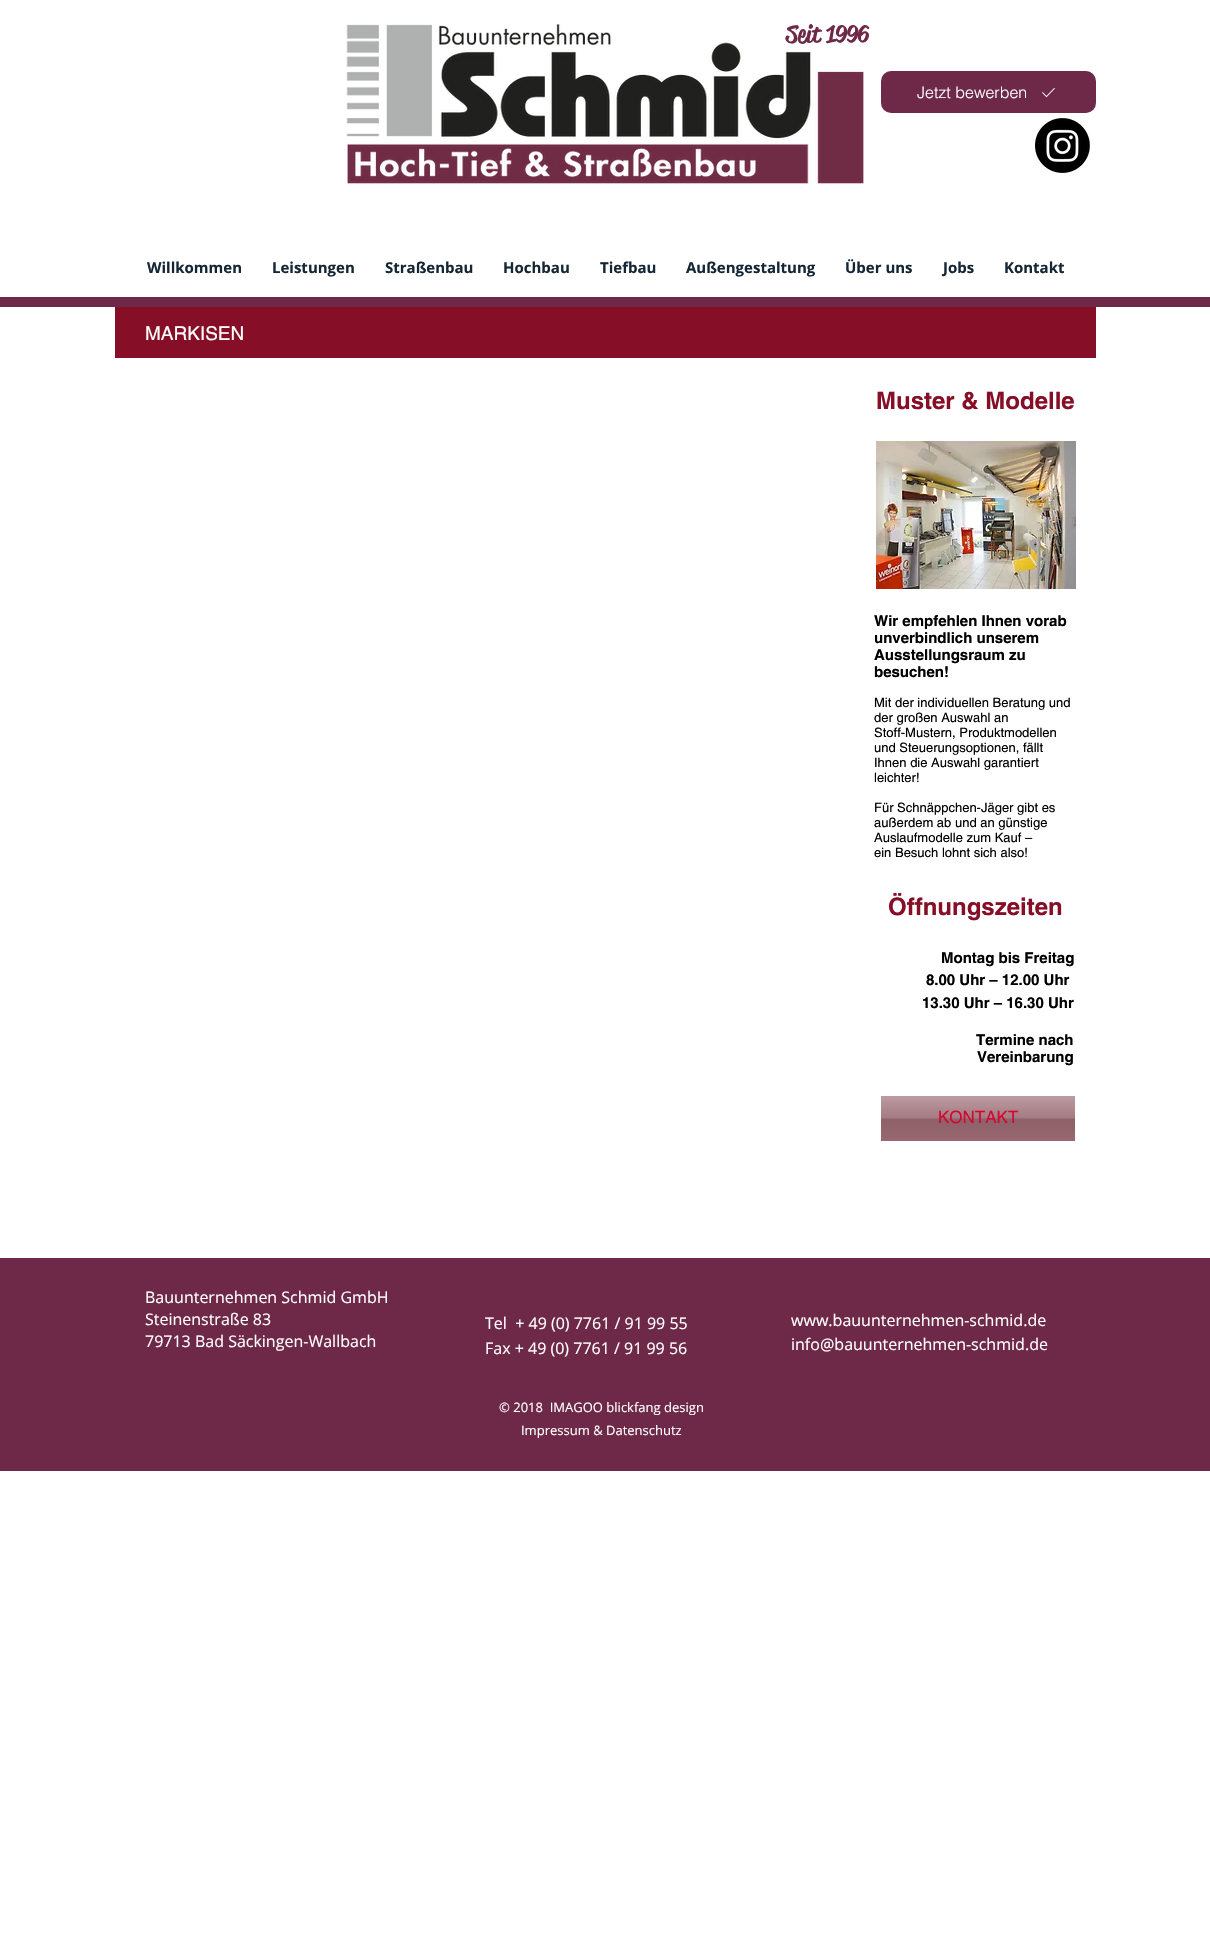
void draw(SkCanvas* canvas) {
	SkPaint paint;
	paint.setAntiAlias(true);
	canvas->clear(0xffffffff);
	canvas->drawImageRect(SkImages::DeferredFromEncodedData(SkData::MakeFromFileName("img1.png")), SkRect::MakeXYWH(346, 23, 518, 167), SkSamplingOptions());
	SkFont f1(fontMgr->matchFamilyStyle("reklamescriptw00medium", SkFontStyle(500, SkFontStyle::kNormal_Width, SkFontStyle::kUpright_Slant)), 24);
	f1.setSubpixel(true);
	paint.setColor(0xff6e2848);
	canvas->drawString("Seit 1996", 786, 42, f1, paint);
	canvas->drawRoundRect(SkRect::MakeXYWH(881, 71, 215, 42), 10, 10, paint);
	SkFont f2(fontMgr->matchFamilyStyle("helvetica", SkFontStyle(300, SkFontStyle::kNormal_Width, SkFontStyle::kUpright_Slant)), 16);
	f2.setSubpixel(true);
	paint.setColor(0xffffffff);
	canvas->drawString("Jetzt bewerben", 917, 98, f2, paint);
	canvas->drawImageRect(SkImages::DeferredFromEncodedData(SkData::MakeFromFileName("img2.png")), SkRect::MakeXYWH(1042, 87, 13, 11), SkSamplingOptions());
	canvas->drawImageRect(SkImages::DeferredFromEncodedData(SkData::MakeFromFileName("img3.png")), SkRect::MakeXYWH(1035, 118, 55, 55), SkSamplingOptions());
	SkFont f3(fontMgr->matchFamilyStyle("Open Sans", SkFontStyle::Bold()), 15);
	f3.setSubpixel(true);
	paint.setColor(0xff152635);
	canvas->drawString("Willkommen", 147, 273, f3, paint);
	canvas->drawString("Leistungen", 272, 273, f3, paint);
	canvas->drawString("Straßenbau", 385, 273, f3, paint);
	canvas->drawString("Hochbau", 503, 273, f3, paint);
	canvas->drawString("Tiefbau", 600, 273, f3, paint);
	canvas->drawString("Außengestaltung", 686, 273, f3, paint);
	canvas->drawString("Über uns", 845, 273, f3, paint);
	canvas->drawString("Jobs", 943, 273, f3, paint);
	canvas->drawString("Kontakt", 1004, 273, f3, paint);
	paint.setColor(0xff6e2848);
	canvas->drawRect(SkRect::MakeXYWH(0, 297, 1210, 10), paint);
	paint.setColor(0xff860f27);
	canvas->drawRect(SkRect::MakeXYWH(115, 307, 981, 51), paint);
	SkFont f4(fontMgr->matchFamilyStyle("helvetica", SkFontStyle::Normal()), 19);
	f4.setSubpixel(true);
	paint.setColor(0xffffffff);
	canvas->drawString("MARKISEN", 145, 340, f4, paint);
	SkFont f5(fontMgr->matchFamilyStyle("helvetica", SkFontStyle::Bold()), 24);
	f5.setSubpixel(true);
	paint.setColor(0xff860f27);
	canvas->drawString("Muster & Modelle", 876, 409, f5, paint);
	canvas->drawImageRect(SkImages::DeferredFromEncodedData(SkData::MakeFromFileName("img4.png")), SkRect::MakeXYWH(876, 441, 200, 148), SkSamplingOptions());
	SkFont f6(fontMgr->matchFamilyStyle("helvetica", SkFontStyle::Bold()), 15);
	f6.setSubpixel(true);
	paint.setColor(0xff000000);
	canvas->drawString("Wir empfehlen Ihnen vorab", 874, 626, f6, paint);
	canvas->drawString("unverbindlich unserem", 874, 643, f6, paint);
	canvas->drawString("Ausstellungsraum zu", 874, 660, f6, paint);
	canvas->drawString("besuchen!", 874, 677, f6, paint);
	SkFont f7(fontMgr->matchFamilyStyle("helvetica", SkFontStyle::Normal()), 13);
	f7.setSubpixel(true);
	canvas->drawString("Mit der individuellen Beratung und", 874, 707, f7, paint);
	canvas->drawString("der großen Auswahl an", 874, 722, f7, paint);
	canvas->drawString("Stoff-Mustern, Produktmodellen", 874, 737, f7, paint);
	canvas->drawString("und Steuerungsoptionen, fällt", 874, 752, f7, paint);
	canvas->drawString("Ihnen die Auswahl garantiert", 874, 767, f7, paint);
	canvas->drawString("leichter!", 874, 782, f7, paint);
	canvas->drawString("Für Schnäppchen-Jäger gibt es", 874, 812, f7, paint);
	canvas->drawString("außerdem ab und an günstige", 874, 827, f7, paint);
	canvas->drawString("Auslaufmodelle zum Kauf –", 874, 842, f7, paint);
	canvas->drawString("ein Besuch lohnt sich also!", 874, 857, f7, paint);
	paint.setColor(0xff860f27);
	canvas->drawString("Öffnungszeiten", 888, 915, f5, paint);
	paint.setColor(0xff000000);
	canvas->drawString("Montag bis Freitag", 941, 963, f6, paint);
	canvas->drawString("8.00 Uhr – 12.00 Uhr", 926, 985, f6, paint);
	canvas->drawString("13.30 Uhr – 16.30 Uhr", 922, 1008, f6, paint);
	canvas->drawString("Termine nach", 976, 1045, f6, paint);
	canvas->drawString("Vereinbarung", 977, 1062, f6, paint);
	paint.setColor(0xff996972);
	canvas->drawRect(SkRect::MakeXYWH(881, 1096, 194, 45), paint);
	canvas->drawImageRect(SkImages::DeferredFromEncodedData(SkData::MakeFromFileName("img5.png")), SkRect::MakeXYWH(881, 1096, 194, 42), SkSamplingOptions());
	SkFont f8(fontMgr->matchFamilyStyle("helvetica", SkFontStyle::Normal()), 17);
	f8.setSubpixel(true);
	paint.setColor(0xffd10830);
	canvas->drawString("KONTAKT", 938, 1123, f8, paint);
	paint.setColor(0xff6e2848);
	canvas->drawRect(SkRect::MakeXYWH(0, 1258, 1210, 213), paint);
	SkFont f9(fontMgr->matchFamilyStyle("Open Sans", SkFontStyle::Normal()), 16);
	f9.setSubpixel(true);
	paint.setColor(0xffffffff);
	canvas->drawString("Bauunternehmen Schmid GmbH", 145, 1303, f9, paint);
	canvas->drawString("Steinenstraße 83", 145, 1325, f9, paint);
	canvas->drawString("79713 Bad Säckingen-Wallbach", 145, 1347, f9, paint);
	canvas->drawString("Tel  + 49 (0) 7761 / 91 99 55", 485, 1329, f9, paint);
	canvas->drawString("Fax + 49 (0) 7761 / 91 99 56", 485, 1354, f9, paint);
	canvas->drawString("www.bauunternehmen-schmid.de", 791, 1326, f9, paint);
	canvas->drawString("info@bauunternehmen-schmid.de", 791, 1350, f9, paint);
	SkFont f10(fontMgr->matchFamilyStyle("Open Sans", SkFontStyle::Normal()), 13);
	f10.setSubpixel(true);
	canvas->drawString("© 2018  IMAGOO blickfang design", 499, 1412, f10, paint);
	canvas->drawString("Impressum & Datenschutz", 521, 1435, f10, paint);
}
